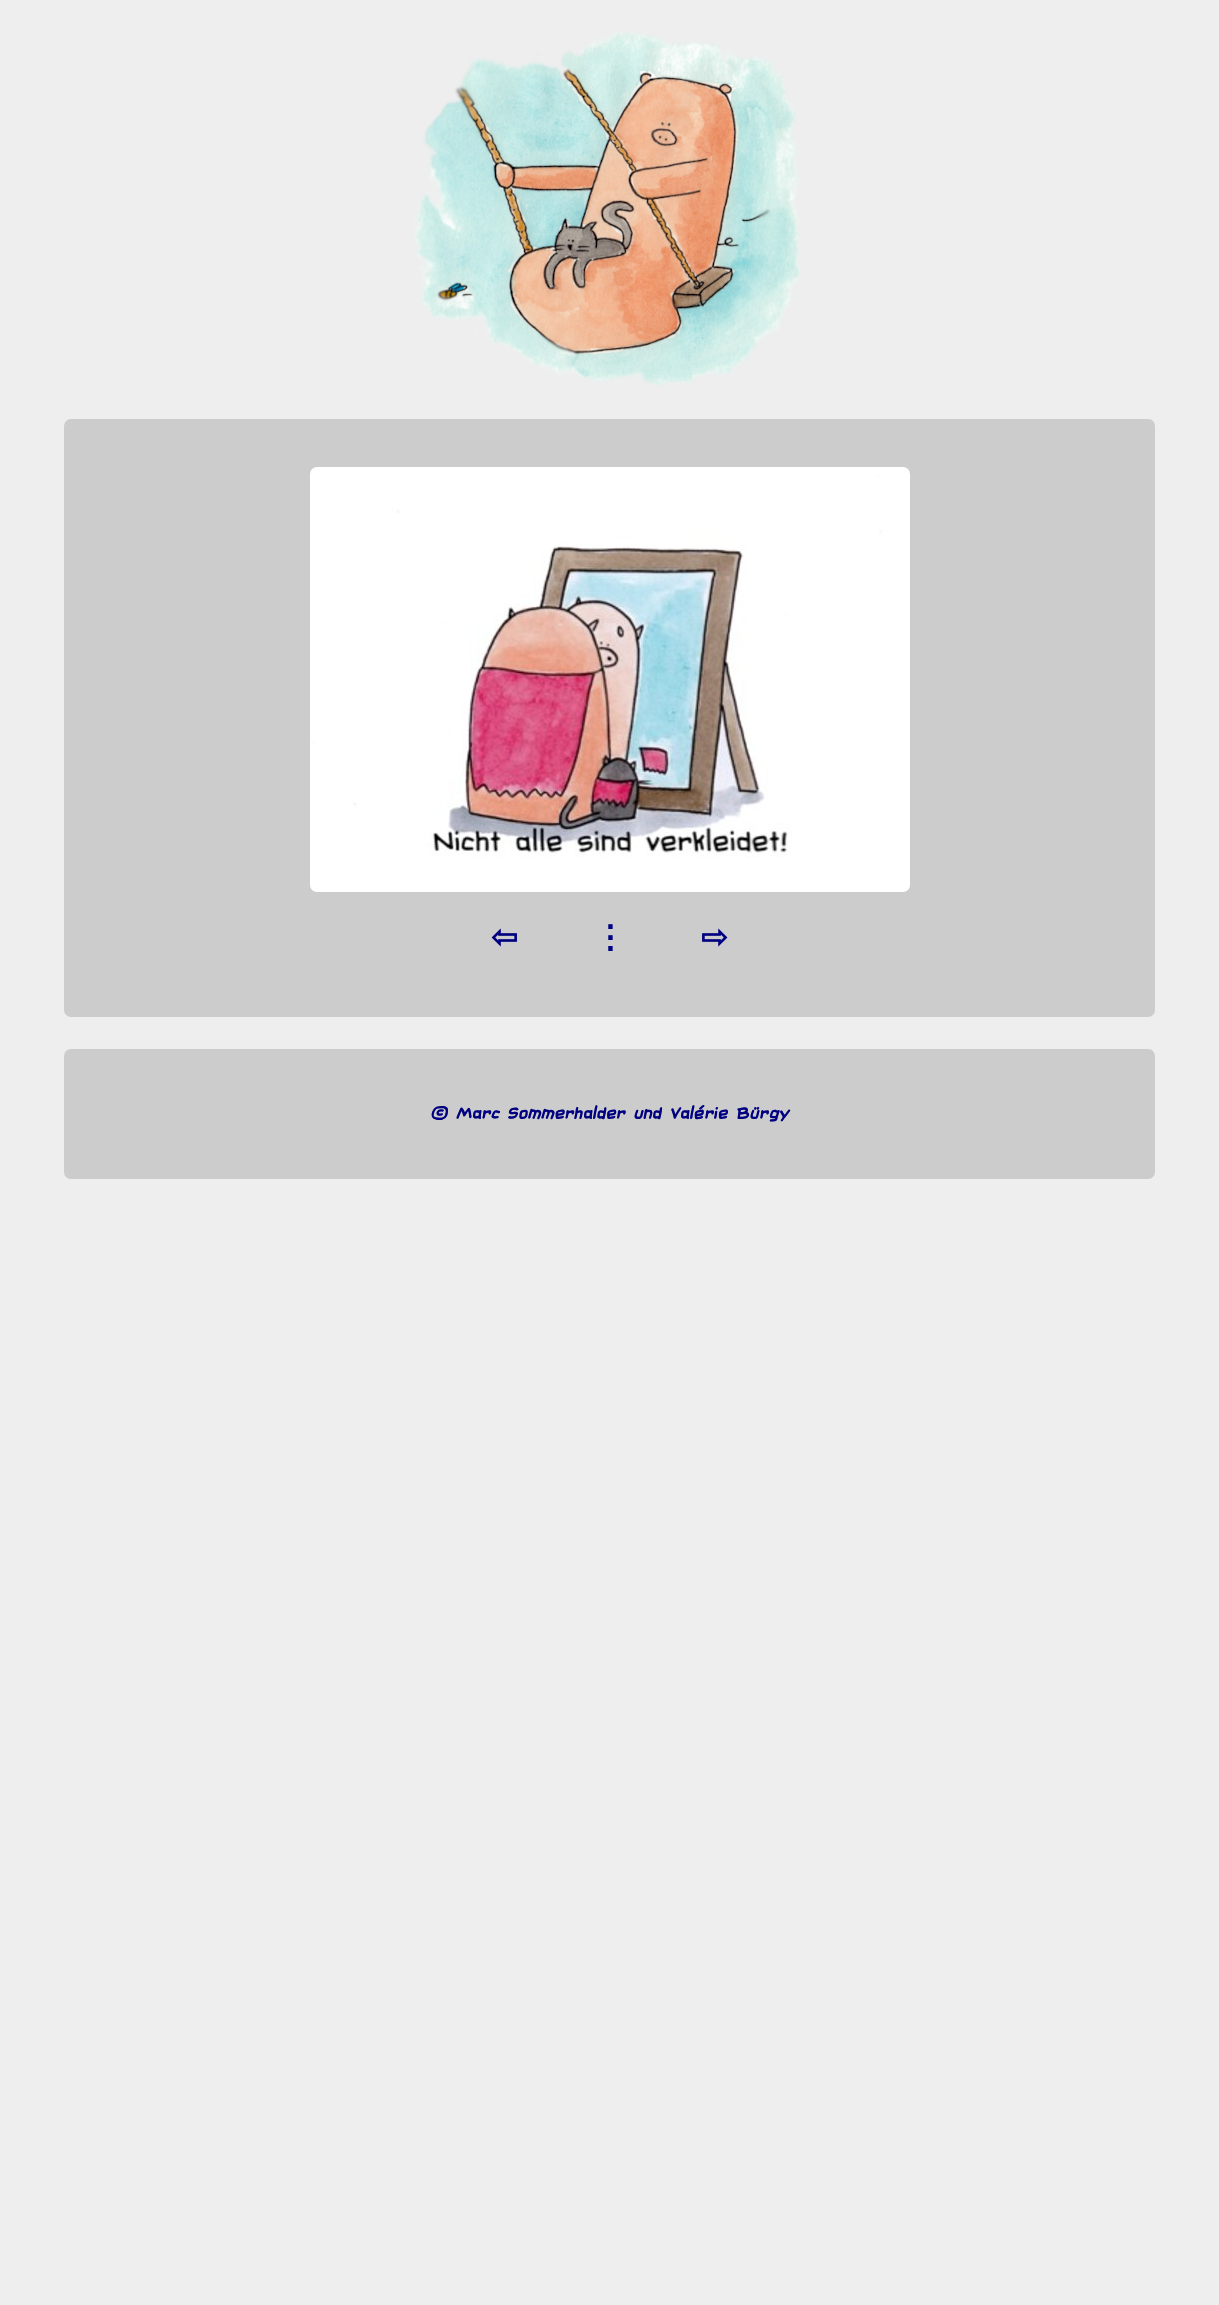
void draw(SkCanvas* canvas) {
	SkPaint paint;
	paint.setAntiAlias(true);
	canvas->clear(0xffeeeeee);
	canvas->drawImageRect(SkImages::DeferredFromEncodedData(SkData::MakeFromFileName("img1.png")), SkRect::MakeXYWH(414, 32, 387, 354), SkSamplingOptions());
	paint.setColor(0xffcccccc);
	canvas->drawRoundRect(SkRect::MakeXYWH(64, 419, 1091, 598), 7, 7, paint);
	canvas->drawImageRect(SkImages::DeferredFromEncodedData(SkData::MakeFromFileName("img2.png")), SkRect::MakeXYWH(310, 467, 600, 425), SkSamplingOptions());
	SkFont f1(fontMgr->matchFamilyStyle("DejaVu Sans", SkFontStyle::Bold()), 32);
	f1.setSubpixel(true);
	paint.setColor(0xff000080);
	canvas->drawString("⇦", 491, 948, f1, paint);
	canvas->drawString("⋮", 594, 948, f1, paint);
	canvas->drawString("⇨", 701, 948, f1, paint);
	paint.setColor(0xffcccccc);
	canvas->drawRoundRect(SkRect::MakeXYWH(64, 1049, 1091, 130), 7, 7, paint);
	SkFont f2(fontMgr->matchFamilyStyle("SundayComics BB", SkFontStyle::Bold()), 14.4);
	f2.setSubpixel(true);
	paint.setColor(0xff000080);
	canvas->drawString("© Marc Sommerhalder und Valérie Bürgy", 431, 1118, f2, paint);
}
